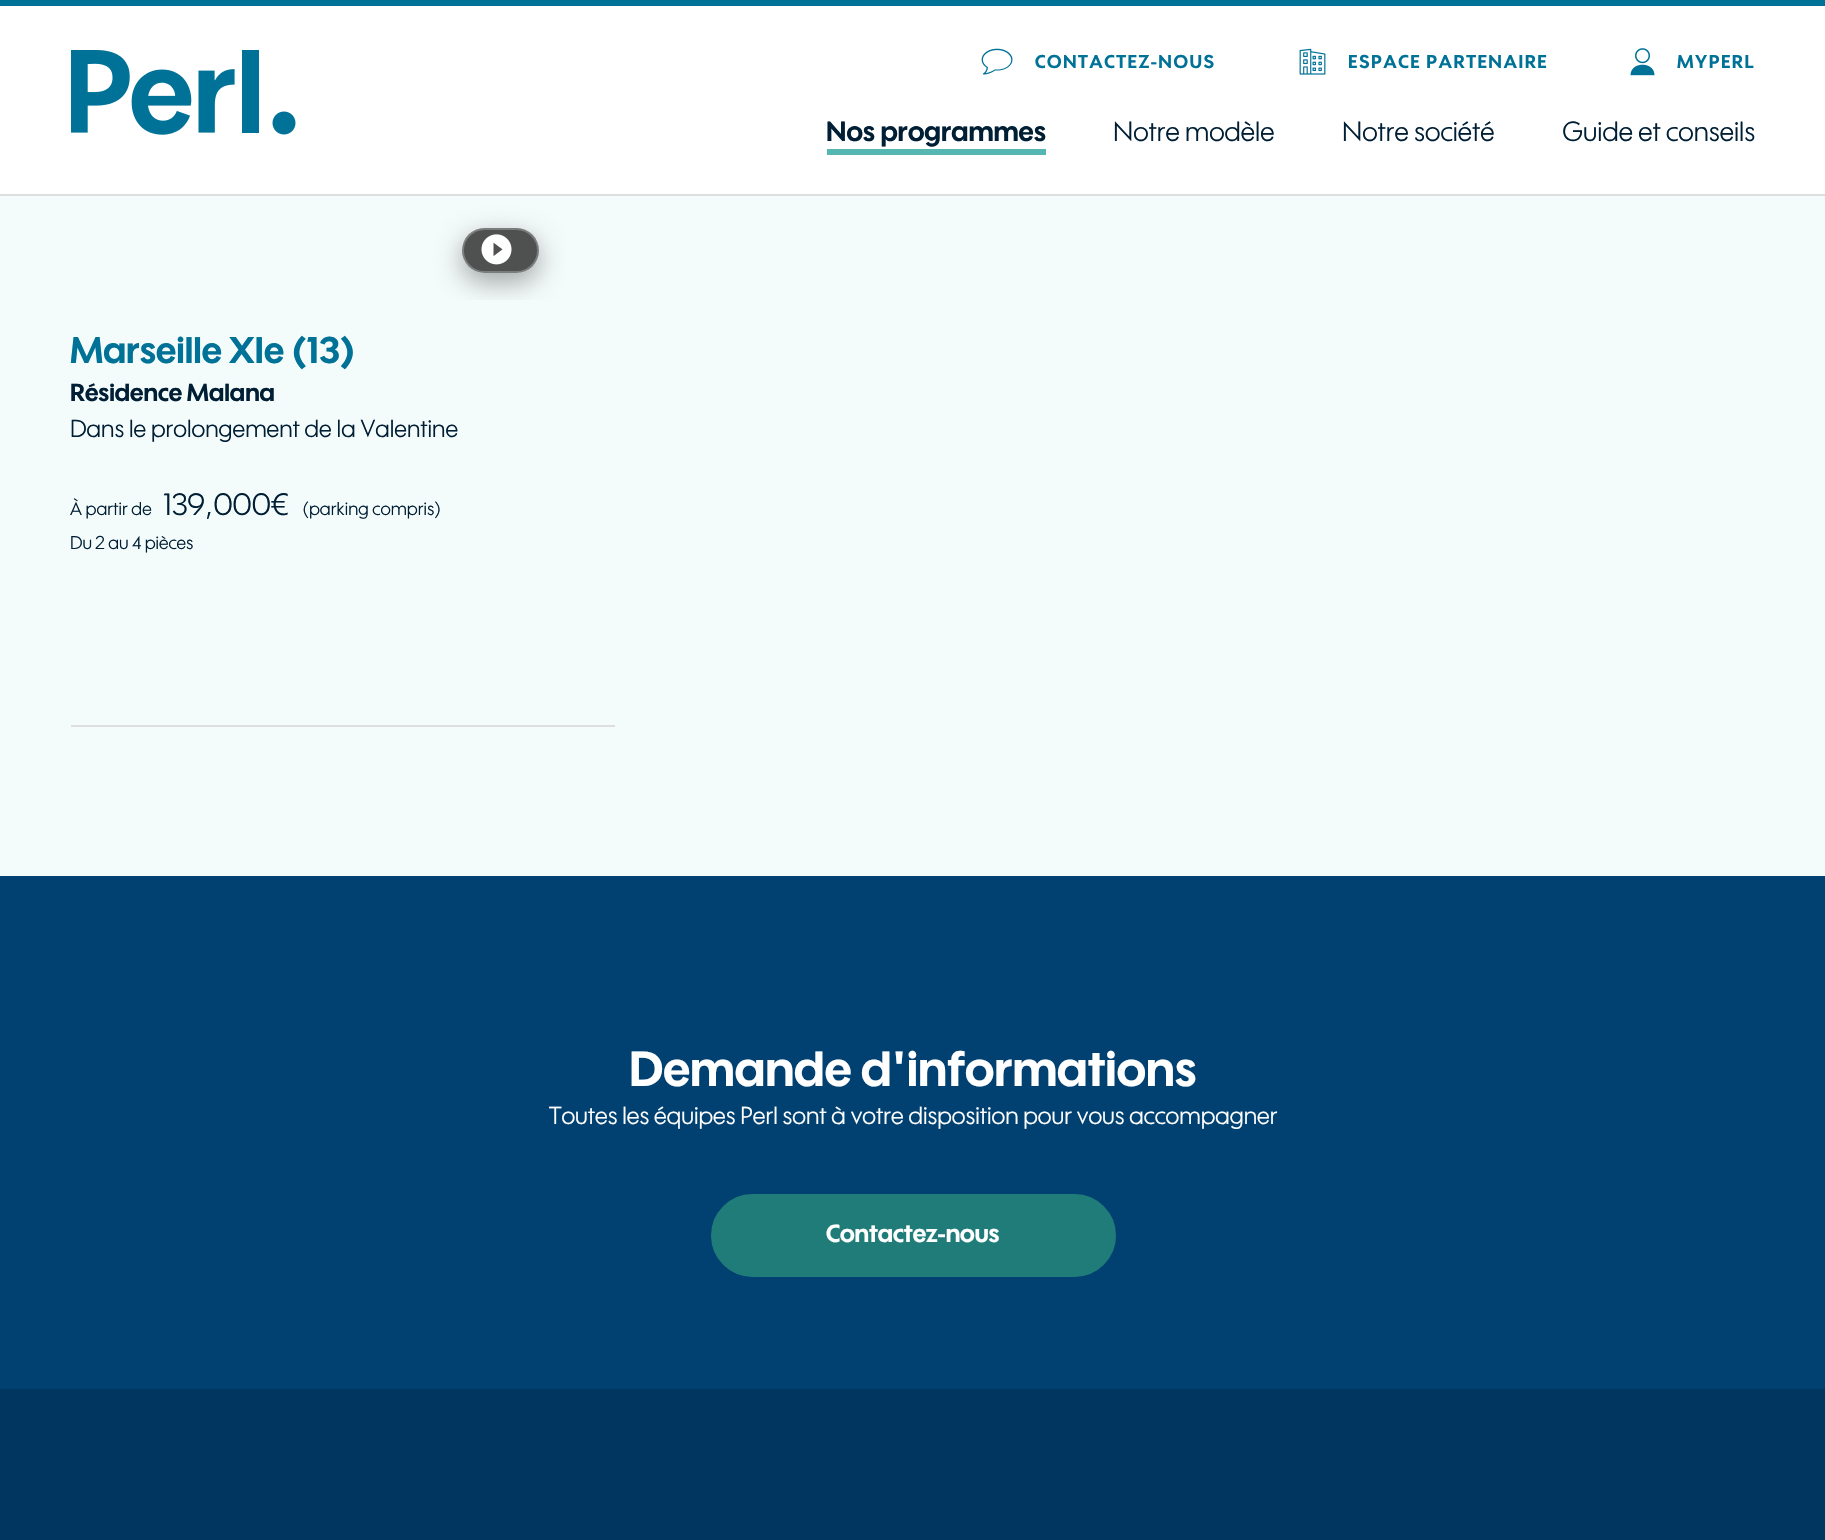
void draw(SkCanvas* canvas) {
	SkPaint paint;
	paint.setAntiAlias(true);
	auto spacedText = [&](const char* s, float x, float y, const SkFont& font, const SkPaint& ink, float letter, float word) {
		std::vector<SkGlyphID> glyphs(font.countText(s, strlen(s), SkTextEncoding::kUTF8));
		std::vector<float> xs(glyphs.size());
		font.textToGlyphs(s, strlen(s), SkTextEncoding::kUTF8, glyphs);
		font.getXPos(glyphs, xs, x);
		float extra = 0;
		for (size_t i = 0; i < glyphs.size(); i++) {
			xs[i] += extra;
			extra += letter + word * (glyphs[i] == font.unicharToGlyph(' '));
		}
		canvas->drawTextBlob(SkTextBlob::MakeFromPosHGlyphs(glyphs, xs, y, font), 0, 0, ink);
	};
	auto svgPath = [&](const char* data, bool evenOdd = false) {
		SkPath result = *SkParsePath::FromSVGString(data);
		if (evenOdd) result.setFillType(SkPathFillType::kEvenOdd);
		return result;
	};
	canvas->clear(0xfff4fbfb);
	paint.setColor(0xff007297);
	canvas->drawRect(SkRect::MakeXYWH(0, 0, 1825, 6), paint);
	paint.setColor(0xffffffff);
	canvas->drawRect(SkRect::MakeXYWH(0, 6, 1825, 188), paint);
	canvas->save();
	canvas->clipRect(SkRect::MakeXYWH(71, 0, 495, 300));
	canvas->clipPath(svgPath("M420 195H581V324H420ZM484.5 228H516.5C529 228 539 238 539 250.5C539 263 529 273 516.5 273H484.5C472 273 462 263 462 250.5C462 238 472 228 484.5 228Z", true), true);
	paint.setColor(0x59000000);
	paint.setMaskFilter(SkMaskFilter::MakeBlur(kNormal_SkBlurStyle, 13.5));
	canvas->drawRoundRect(SkRect::MakeXYWH(462, 237, 77, 45), 22.5, 22.5, paint);
	paint.setMaskFilter(nullptr);
	canvas->restore();
	paint.setColor(0xffdedede);
	canvas->drawRect(SkRect::MakeXYWH(0, 194, 1825, 2), paint);
	canvas->drawImageRect(SkImages::DeferredFromEncodedData(SkData::MakeFromFileName("img1.png")), SkRect::MakeXYWH(71, 50, 225, 85), SkSamplingOptions());
	canvas->drawImageRect(SkImages::DeferredFromEncodedData(SkData::MakeFromFileName("img2.png")), SkRect::MakeXYWH(981, 48, 32, 27), SkSamplingOptions());
	SkFont f1(fontMgr->matchFamilyStyle("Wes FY", SkFontStyle::Bold()), 18);
	f1.setSubpixel(true);
	paint.setColor(0xff007297);
	spacedText("CONTACTEZ-NOUS", 1035, 68, f1, paint, 1.5, 0);
	canvas->drawImageRect(SkImages::DeferredFromEncodedData(SkData::MakeFromFileName("img3.png")), SkRect::MakeXYWH(1299, 48, 27, 27), SkSamplingOptions());
	spacedText("ESPACE PARTENAIRE", 1348, 68, f1, paint, 1.5, 0);
	canvas->drawImageRect(SkImages::DeferredFromEncodedData(SkData::MakeFromFileName("img4.png")), SkRect::MakeXYWH(1630, 48, 25, 28), SkSamplingOptions());
	spacedText("MYPERL", 1677, 68, f1, paint, 1.5, 0);
	SkFont f2(fontMgr->matchFamilyStyle("Wes FY", SkFontStyle::Bold()), 27);
	f2.setSubpixel(true);
	paint.setColor(0xff001f35);
	canvas->drawString("Nos programmes", 826, 141, f2, paint);
	paint.setColor(0xff56b6b1);
	canvas->drawRect(SkRect::MakeXYWH(827, 149, 219, 6), paint);
	SkFont f3(fontMgr->matchFamilyStyle("Wes FY", SkFontStyle::Normal()), 27);
	f3.setSubpixel(true);
	paint.setColor(0xff001f35);
	canvas->drawString("Notre modèle", 1113, 141, f3, paint);
	canvas->drawString("Notre société", 1342, 141, f3, paint);
	canvas->drawString("Guide et conseils", 1562, 141, f3, paint);
	paint.setColor(0xad000000);
	canvas->drawRoundRect(SkRect::MakeXYWH(462, 228, 77, 45), 22.5, 22.5, paint);
	paint.setStroke(true);
	paint.setStrokeWidth(2);
	paint.setColor(0x40ffffff);
	canvas->drawRoundRect(SkRect::MakeXYWH(463, 229, 75, 43), 21.5, 21.5, paint);
	canvas->drawImageRect(SkImages::DeferredFromEncodedData(SkData::MakeFromFileName("img5.png")), SkRect::MakeXYWH(481, 234, 31, 31), SkSamplingOptions());
	SkFont f4(fontMgr->matchFamilyStyle("Wes FY", SkFontStyle::Bold()), 36);
	f4.setSubpixel(true);
	paint.setStroke(false);
	paint.setColor(0xff007297);
	canvas->drawString("Marseille XIe (13)", 70, 363, f4, paint);
	SkFont f5(fontMgr->matchFamilyStyle("Wes FY", SkFontStyle::Bold()), 24);
	f5.setSubpixel(true);
	paint.setColor(0xff001f35);
	canvas->drawString("Résidence Malana", 70, 401, f5, paint);
	SkFont f6(fontMgr->matchFamilyStyle("Wes FY", SkFontStyle::Normal()), 24);
	f6.setSubpixel(true);
	canvas->drawString("Dans le prolongement de la Valentine", 70, 437, f6, paint);
	SkFont f7(fontMgr->matchFamilyStyle("Wes FY", SkFontStyle::Normal()), 18);
	f7.setSubpixel(true);
	canvas->drawString("À partir de", 70, 515, f7, paint);
	SkFont f8(fontMgr->matchFamilyStyle("Wes FY", SkFontStyle::Normal()), 30);
	f8.setSubpixel(true);
	canvas->drawString("139,000 €", 163, 515, f8, paint);
	canvas->drawString("(parking compris)", 302, 515, f7, paint);
	canvas->drawString("Du 2 au 4 pièces", 70, 549, f7, paint);
	paint.setColor(0xffdedede);
	canvas->drawRect(SkRect::MakeXYWH(71, 725, 544, 2), paint);
	paint.setColor(0xff004172);
	canvas->drawRect(SkRect::MakeXYWH(0, 876, 1825, 513), paint);
	SkFont f9(fontMgr->matchFamilyStyle("Wes FY", SkFontStyle::Bold()), 48);
	f9.setSubpixel(true);
	paint.setColor(0xffffffff);
	canvas->drawString("Demande d'informations", 629, 1086, f9, paint);
	canvas->drawString("Toutes les équipes Perl sont à votre disposition pour vous accompagner", 549, 1124, f6, paint);
	paint.setColor(0xff1f7c78);
	canvas->drawRoundRect(SkRect::MakeXYWH(712.5, 1195.5, 402, 80), 40, 40, paint);
	paint.setStroke(true);
	paint.setStrokeWidth(3);
	canvas->drawRoundRect(SkRect::MakeXYWH(712.5, 1195.5, 402, 80), 40, 40, paint);
	paint.setStroke(false);
	paint.setColor(0xffffffff);
	canvas->drawString("Contactez-nous", 826, 1242, f5, paint);
	paint.setColor(0xff00365f);
	canvas->drawRect(SkRect::MakeXYWH(0, 1389, 1825, 151), paint);
}
